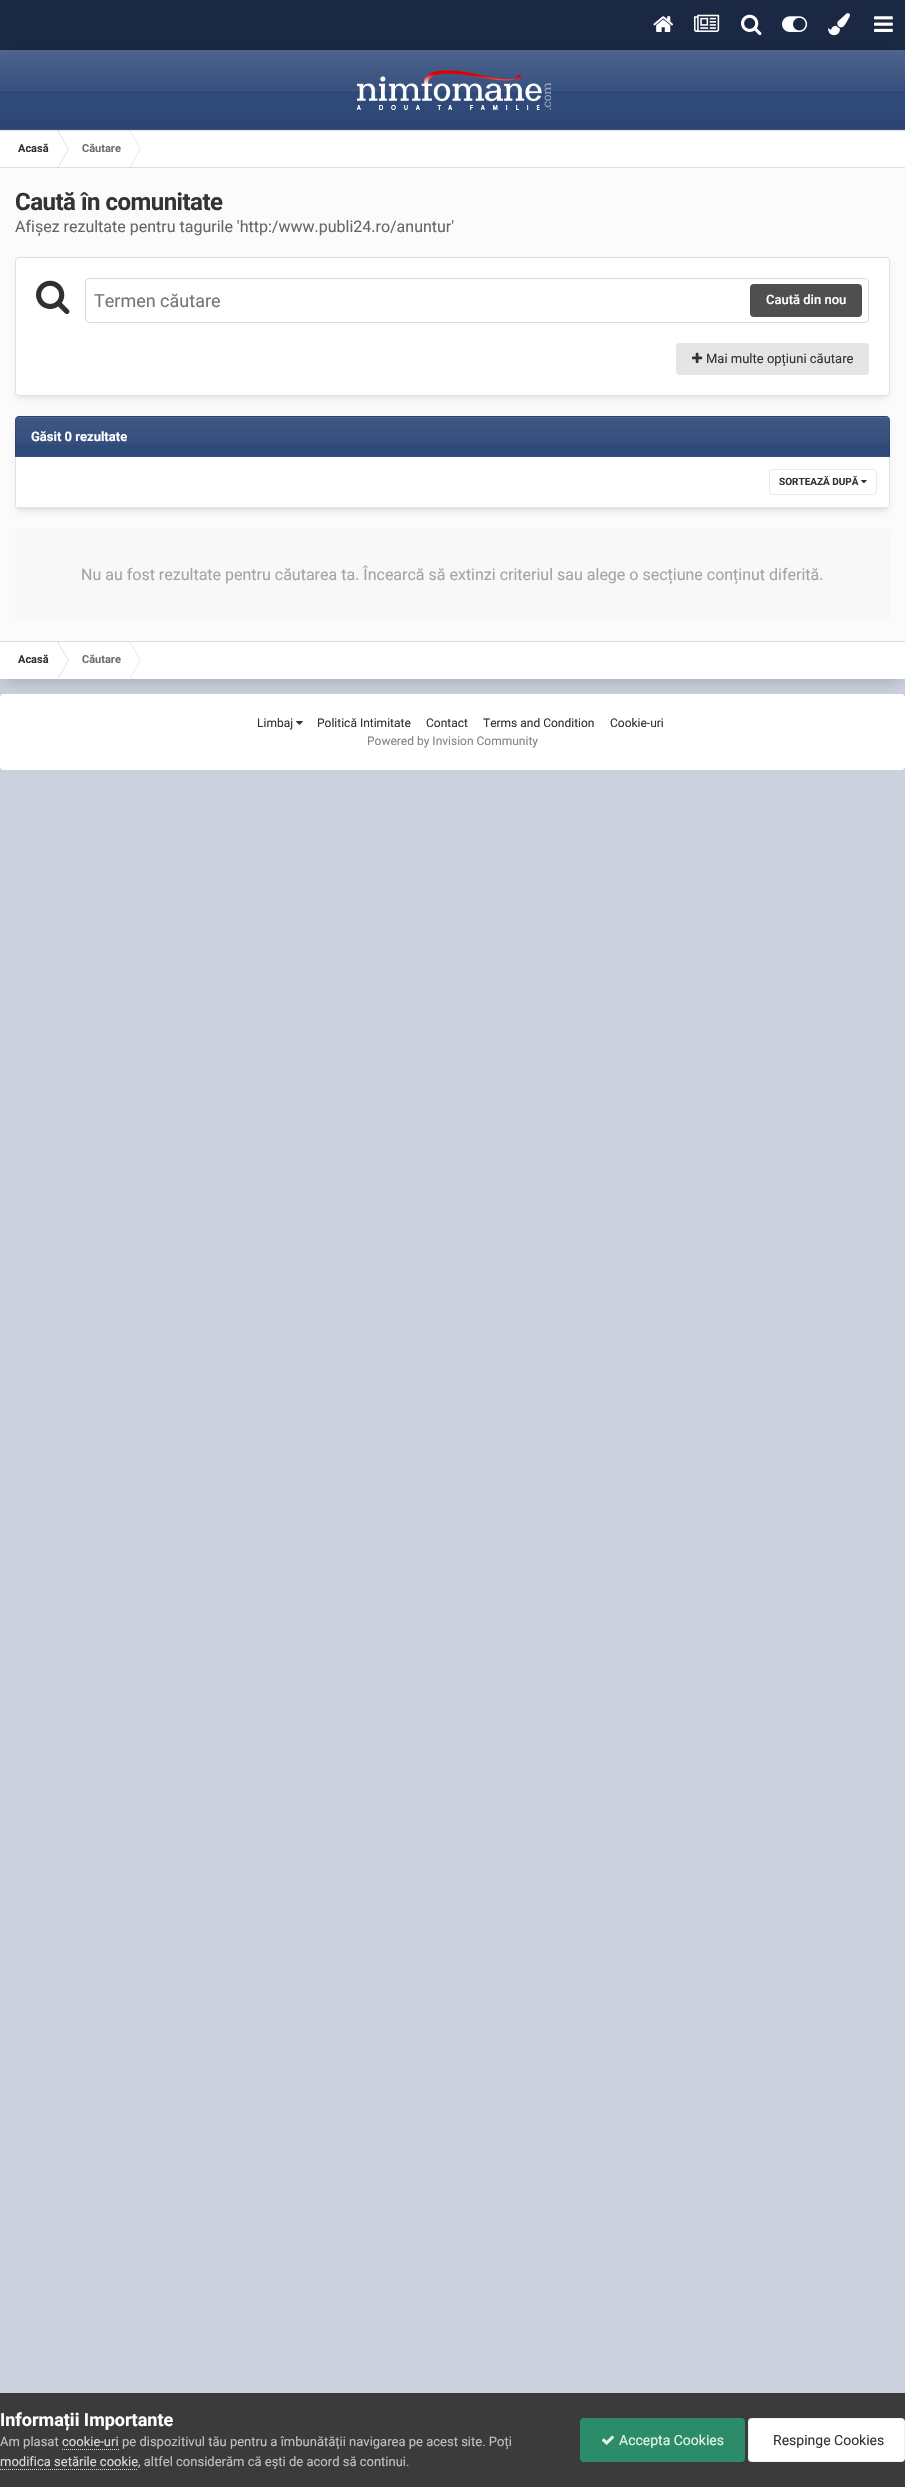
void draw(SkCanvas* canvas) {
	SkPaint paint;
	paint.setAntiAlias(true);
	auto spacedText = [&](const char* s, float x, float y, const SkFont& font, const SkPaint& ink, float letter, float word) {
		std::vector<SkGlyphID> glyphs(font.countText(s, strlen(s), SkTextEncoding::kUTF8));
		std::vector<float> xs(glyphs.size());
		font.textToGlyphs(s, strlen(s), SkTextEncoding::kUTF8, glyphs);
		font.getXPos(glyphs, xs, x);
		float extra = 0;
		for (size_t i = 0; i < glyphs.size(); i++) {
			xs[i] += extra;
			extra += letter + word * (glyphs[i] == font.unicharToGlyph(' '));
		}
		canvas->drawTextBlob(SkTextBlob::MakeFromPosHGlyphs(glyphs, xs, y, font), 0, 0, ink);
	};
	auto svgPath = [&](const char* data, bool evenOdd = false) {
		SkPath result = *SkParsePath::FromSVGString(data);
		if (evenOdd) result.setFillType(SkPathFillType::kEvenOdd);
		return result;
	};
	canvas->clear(0xffcbd2de);
	paint.setColor(0xff1a2843);
	canvas->drawRect(SkRect::MakeXYWH(0, 0, 905, 50), paint);
	canvas->drawImageRect(SkImages::DeferredFromEncodedData(SkData::MakeFromFileName("img1.png")), SkRect::MakeXYWH(653, 16, 21, 16), SkSamplingOptions());
	canvas->drawImageRect(SkImages::DeferredFromEncodedData(SkData::MakeFromFileName("img2.png")), SkRect::MakeXYWH(694, 14, 26, 18), SkSamplingOptions());
	canvas->drawImageRect(SkImages::DeferredFromEncodedData(SkData::MakeFromFileName("img3.png")), SkRect::MakeXYWH(741, 14, 21, 22), SkSamplingOptions());
	canvas->drawImageRect(SkImages::DeferredFromEncodedData(SkData::MakeFromFileName("img4.png")), SkRect::MakeXYWH(782, 16, 26, 16), SkSamplingOptions());
	canvas->drawImageRect(SkImages::DeferredFromEncodedData(SkData::MakeFromFileName("img5.png")), SkRect::MakeXYWH(828, 13, 22, 23), SkSamplingOptions());
	canvas->drawImageRect(SkImages::DeferredFromEncodedData(SkData::MakeFromFileName("img6.png")), SkRect::MakeXYWH(874, 16, 19, 16), SkSamplingOptions());
	paint.setColor(0x33000000);
	paint.setMaskFilter(SkMaskFilter::MakeBlur(kNormal_SkBlurStyle, 8));
	canvas->drawRect(SkRect::MakeXYWH(4, 60, 897, 621), paint);
	paint.setMaskFilter(nullptr);
	paint.setColor(0xfffbfbfc);
	canvas->drawRect(SkRect::MakeXYWH(0, 168, 905, 473), paint);
	{
		const SkColor colors[] = {0xff4e648d, 0xff37507e, 0xff3e5682, 0xff3e5682, 0xff2f4979, 0xff2f4979, 0xff2b436f};
		const float stops[] = {0, 0.5, 0.5, 0.51, 0.51, 0.75, 1};
		const SkPoint ends[] = {{453, 50}, {453, 130}};
		paint.setShader(SkGradientShader::MakeLinear(ends, colors, stops, 7, SkTileMode::kClamp));
		paint.setAlpha(255);
	}
	canvas->drawRect(SkRect::MakeXYWH(0, 50, 905, 79), paint);
	paint.setShader(nullptr);
	paint.setColor(0xff40567d);
	canvas->drawRect(SkRect::MakeXYWH(0, 129, 905, 1), paint);
	canvas->drawImageRect(SkImages::DeferredFromEncodedData(SkData::MakeFromFileName("img7.png")), SkRect::MakeXYWH(357, 70, 194, 40), SkSamplingOptions());
	paint.setColor(0xffffffff);
	canvas->drawRect(SkRect::MakeXYWH(0, 130, 905, 38), paint);
	paint.setColor(0xffe0e0e0);
	canvas->drawPath(svgPath("M57 130H58L69 149H68ZM57 168H58L69 149H68Z"), paint);
	paint.setColor(0xffeaeaea);
	canvas->drawPath(svgPath("M129 130H130L141 149H140ZM129 168H130L141 149H140Z"), paint);
	paint.setColor(0x33666666);
	canvas->drawRect(SkRect::MakeXYWH(0, 130, 905, 1), paint);
	canvas->drawRect(SkRect::MakeXYWH(0, 167, 905, 1), paint);
	SkFont f1(fontMgr->matchFamilyStyle("Roboto", SkFontStyle::Bold()), 11);
	f1.setSubpixel(true);
	paint.setColor(0xff333333);
	canvas->drawString("Acasă", 18, 152, f1, paint);
	paint.setColor(0xff6f6f6f);
	canvas->drawString("Căutare", 82, 152, f1, paint);
	SkFont f2(fontMgr->matchFamilyStyle("Roboto", SkFontStyle::Bold()), 24);
	f2.setSubpixel(true);
	paint.setColor(0xff333333);
	spacedText("Caută în comunitate", 15, 210, f2, paint, -0.5, 0);
	SkFont f3(fontMgr->matchFamilyStyle("Roboto", SkFontStyle::Normal()), 16);
	f3.setSubpixel(true);
	paint.setColor(0xff666666);
	canvas->drawString("Afișez rezultate pentru tagurile 'http:/www.publi24.ro/anuntur'", 15, 232, f3, paint);
	paint.setColor(0x1a000000);
	paint.setMaskFilter(SkMaskFilter::MakeBlur(kNormal_SkBlurStyle, 3));
	canvas->drawRoundRect(SkRect::MakeXYWH(17, 263, 871, 135), 2, 2, paint);
	paint.setMaskFilter(nullptr);
	paint.setColor(0xffffffff);
	canvas->drawRoundRect(SkRect::MakeXYWH(15, 257, 875, 139), 4, 4, paint);
	paint.setStroke(true);
	paint.setStrokeWidth(1);
	paint.setColor(0x33666666);
	canvas->drawRoundRect(SkRect::MakeXYWH(15.5, 257.5, 874, 138), 3.5, 3.5, paint);
	canvas->drawImageRect(SkImages::DeferredFromEncodedData(SkData::MakeFromFileName("img8.png")), SkRect::MakeXYWH(36, 280, 34, 35), SkSamplingOptions());
	paint.setColor(0xffdbdbdb);
	canvas->drawRoundRect(SkRect::MakeXYWH(85.5, 278.5, 783, 44), 3.5, 3.5, paint);
	SkFont f4(fontMgr->matchFamilyStyle("Roboto", SkFontStyle::Normal()), 18);
	f4.setSubpixel(true);
	paint.setStroke(false);
	paint.setColor(0xff757575);
	canvas->drawString("Termen căutare", 94, 307, f4, paint);
	paint.setColor(0xff4f4f4f);
	canvas->drawRoundRect(SkRect::MakeXYWH(750, 284, 112, 33), 4, 4, paint);
	SkFont f5(fontMgr->matchFamilyStyle("Roboto", SkFontStyle(500, SkFontStyle::kNormal_Width, SkFontStyle::kUpright_Slant)), 13);
	f5.setSubpixel(true);
	paint.setColor(0xffffffff);
	canvas->drawString("Caută din nou", 766, 304, f5, paint);
	paint.setColor(0xffe5e5e5);
	canvas->drawRoundRect(SkRect::MakeXYWH(676, 343, 193, 32), 4, 4, paint);
	canvas->drawImageRect(SkImages::DeferredFromEncodedData(SkData::MakeFromFileName("img9.png")), SkRect::MakeXYWH(692, 352, 11, 11), SkSamplingOptions());
	SkFont f6(fontMgr->matchFamilyStyle("Roboto", SkFontStyle::Normal()), 13);
	f6.setSubpixel(true);
	paint.setColor(0xff333333);
	canvas->drawString("Mai multe opțiuni căutare", 706, 363, f6, paint);
	paint.setColor(0x1a000000);
	paint.setMaskFilter(SkMaskFilter::MakeBlur(kNormal_SkBlurStyle, 3));
	canvas->drawRoundRect(SkRect::MakeXYWH(17, 422, 871, 89), 2, 2, paint);
	paint.setMaskFilter(nullptr);
	paint.setColor(0xffffffff);
	canvas->drawRoundRect(SkRect::MakeXYWH(15, 416, 875, 93), 4, 4, paint);
	paint.setStroke(true);
	paint.setColor(0x33666666);
	canvas->drawRoundRect(SkRect::MakeXYWH(15.5, 416.5, 874, 92), 3.5, 3.5, paint);
	paint.setStroke(false);
	paint.setColor(0xff2f4979);
	canvas->drawPath(svgPath("M19 416H886C888 416 890 418 890 420V457H15V420C15 418 17 416 19 416Z"), paint);
	{
		const SkColor colors[] = {0x14ffffff, 0x00ffffff};
		const float stops[] = {0, 1};
		const SkPoint ends[] = {{453, 417}, {453, 456}};
		paint.setShader(SkGradientShader::MakeLinear(ends, colors, stops, 2, SkTileMode::kClamp));
		paint.setAlpha(255);
	}
	canvas->drawRect(SkRect::MakeXYWH(15, 417, 875, 28), paint);
	{
		const SkColor colors[] = {0xff405884, 0xff2f4979};
		const float stops[] = {0, 1};
		const SkPoint ends[] = {{453, 456}, {453, 495}};
		paint.setShader(SkGradientShader::MakeLinear(ends, colors, stops, 2, SkTileMode::kClamp));
		paint.setAlpha(255);
	}
	canvas->drawRect(SkRect::MakeXYWH(15, 456, 875, 1), paint);
	paint.setShader(nullptr);
	paint.setColor(0xff526890);
	canvas->drawPath(svgPath("M19 418H886C888 418 889 419 889 421C889 419 888 417 886 417H19C17 417 16 419 16 421C16 419 17 418 19 418Z"), paint);
	paint.setStroke(true);
	paint.setColor(0x1a000000);
	canvas->drawPath(svgPath("M19 416.5H886C888 416.5 889.5 418 889.5 420V456.5H15.5V420C15.5 418 17 416.5 19 416.5Z"), paint);
	SkFont f7(fontMgr->matchFamilyStyle("Roboto", SkFontStyle::Bold()), 13);
	f7.setSubpixel(true);
	paint.setStroke(false);
	paint.setColor(0xffffffff);
	canvas->drawString("Găsit 0 rezultate", 31, 441, f7, paint);
	canvas->drawRect(SkRect::MakeXYWH(16, 505, 873, 2), paint);
	paint.setColor(0xffe8e8e8);
	canvas->drawRect(SkRect::MakeXYWH(16, 507, 873, 1), paint);
	canvas->drawImageRect(SkImages::DeferredFromEncodedData(SkData::MakeFromFileName("img10.png")), SkRect::MakeXYWH(861, 480, 6, 4), SkSamplingOptions());
	paint.setStroke(true);
	paint.setColor(0xffeaeaea);
	canvas->drawRoundRect(SkRect::MakeXYWH(769.5, 469.5, 107, 25), 3.5, 3.5, paint);
	SkFont f8(fontMgr->matchFamilyStyle("Roboto", SkFontStyle::Bold()), 10);
	f8.setSubpixel(true);
	paint.setStroke(false);
	paint.setColor(0xff333333);
	canvas->drawString("SORTEAZĂ DUPĂ", 779, 485, f8, paint);
	paint.setColor(0xfff8f8f8);
	canvas->drawRect(SkRect::MakeXYWH(15, 529, 875, 92), paint);
	paint.setColor(0xffa4a4a4);
	canvas->drawString("Nu au fost rezultate pentru căutarea ta. Încearcă să extinzi criteriul sau alege o secțiune conținut diferită.", 81, 580, f3, paint);
	paint.setColor(0xffffffff);
	canvas->drawRect(SkRect::MakeXYWH(0, 641, 905, 38), paint);
	paint.setColor(0xffe0e0e0);
	canvas->drawPath(svgPath("M57 641.5H58L69 660.5H68Z"), paint);
	paint.setColor(0xffeaeaea);
	canvas->drawPath(svgPath("M129 641.5H130L141 660.5H140Z"), paint);
	paint.setColor(0x33666666);
	canvas->drawRect(SkRect::MakeXYWH(0, 641, 905, 1), paint);
	paint.setColor(0xff333333);
	canvas->drawString("Acasă", 18, 663, f1, paint);
	paint.setColor(0xffe0e0e0);
	canvas->drawPath(svgPath("M57 679.5H58L69 660.5H68Z"), paint);
	paint.setColor(0xff6f6f6f);
	canvas->drawString("Căutare", 82, 663, f1, paint);
	paint.setColor(0xffeaeaea);
	canvas->drawPath(svgPath("M129 679.5H130L141 660.5H140Z"), paint);
	paint.setColor(0xffffffff);
	canvas->drawRoundRect(SkRect::MakeXYWH(0, 694, 905, 76), 4, 4, paint);
	SkFont f9(fontMgr->matchFamilyStyle("Roboto", SkFontStyle::Normal()), 12);
	f9.setSubpixel(true);
	paint.setColor(0xff333333);
	canvas->drawString("Limbaj", 257, 727, f9, paint);
	canvas->drawImageRect(SkImages::DeferredFromEncodedData(SkData::MakeFromFileName("img11.png")), SkRect::MakeXYWH(296, 721, 7, 4), SkSamplingOptions());
	canvas->drawString("Politică Intimitate", 317, 727, f9, paint);
	canvas->drawString("Contact", 426, 727, f9, paint);
	canvas->drawString("Terms and Condition", 483, 727, f9, paint);
	canvas->drawString("Cookie-uri", 610, 727, f9, paint);
	paint.setColor(0xff858585);
	canvas->drawString("Powered by Invision Community", 367, 745, f9, paint);
	paint.setColor(0xff3b3b3b);
	canvas->drawRect(SkRect::MakeXYWH(0, 2393, 905, 94), paint);
	SkFont f10(fontMgr->matchFamilyStyle("Roboto", SkFontStyle::Bold()), 18);
	f10.setSubpixel(true);
	paint.setColor(0xffffffff);
	canvas->drawString("Informații Importante", 0, 2426, f10, paint);
	paint.setColor(0xffc0c0c0);
	canvas->drawString("Am plasat", 0, 2446, f6, paint);
	paint.setColor(0xffdadada);
	canvas->drawString("cookie-uri", 62, 2446, f6, paint);
	paint.setStroke(true);
	paint.setPathEffect(SkDashPathEffect::Make({{1, 1}}, 0));
	canvas->drawPath(svgPath("M62 2449.5H119"), paint);
	paint.setPathEffect(nullptr);
	paint.setStroke(false);
	paint.setColor(0xffc0c0c0);
	canvas->drawString("pe dispozitivul tău pentru a îmbunătății navigarea pe acest site. Poți", 122, 2446, f6, paint);
	paint.setColor(0xffdadada);
	canvas->drawString("modifica setările cookie", 0, 2466, f6, paint);
	paint.setStroke(true);
	paint.setPathEffect(SkDashPathEffect::Make({{1, 1}}, 0));
	canvas->drawPath(svgPath("M0 2469.5H138"), paint);
	paint.setPathEffect(nullptr);
	paint.setStroke(false);
	paint.setColor(0xffc0c0c0);
	canvas->drawString(", altfel considerăm că ești de acord să continui.", 138, 2466, f6, paint);
	paint.setColor(0xff2c8c69);
	canvas->drawRoundRect(SkRect::MakeXYWH(580, 2418, 165, 44), 4, 4, paint);
	canvas->drawImageRect(SkImages::DeferredFromEncodedData(SkData::MakeFromFileName("img12.png")), SkRect::MakeXYWH(602, 2435, 12, 10), SkSamplingOptions());
	SkFont f11(fontMgr->matchFamilyStyle("Roboto", SkFontStyle::Normal()), 14);
	f11.setSubpixel(true);
	paint.setColor(0xffe3f3ec);
	canvas->drawString("Accepta Cookies", 619, 2445, f11, paint);
	paint.setColor(0xffffffff);
	canvas->drawRoundRect(SkRect::MakeXYWH(748, 2418, 157, 44), 4, 4, paint);
	paint.setStroke(true);
	paint.setColor(0x12333333);
	canvas->drawRoundRect(SkRect::MakeXYWH(748.5, 2418.5, 156, 43), 3.5, 3.5, paint);
	paint.setStroke(false);
	paint.setColor(0xff333333);
	canvas->drawString("Respinge Cookies", 773, 2445, f11, paint);
}
